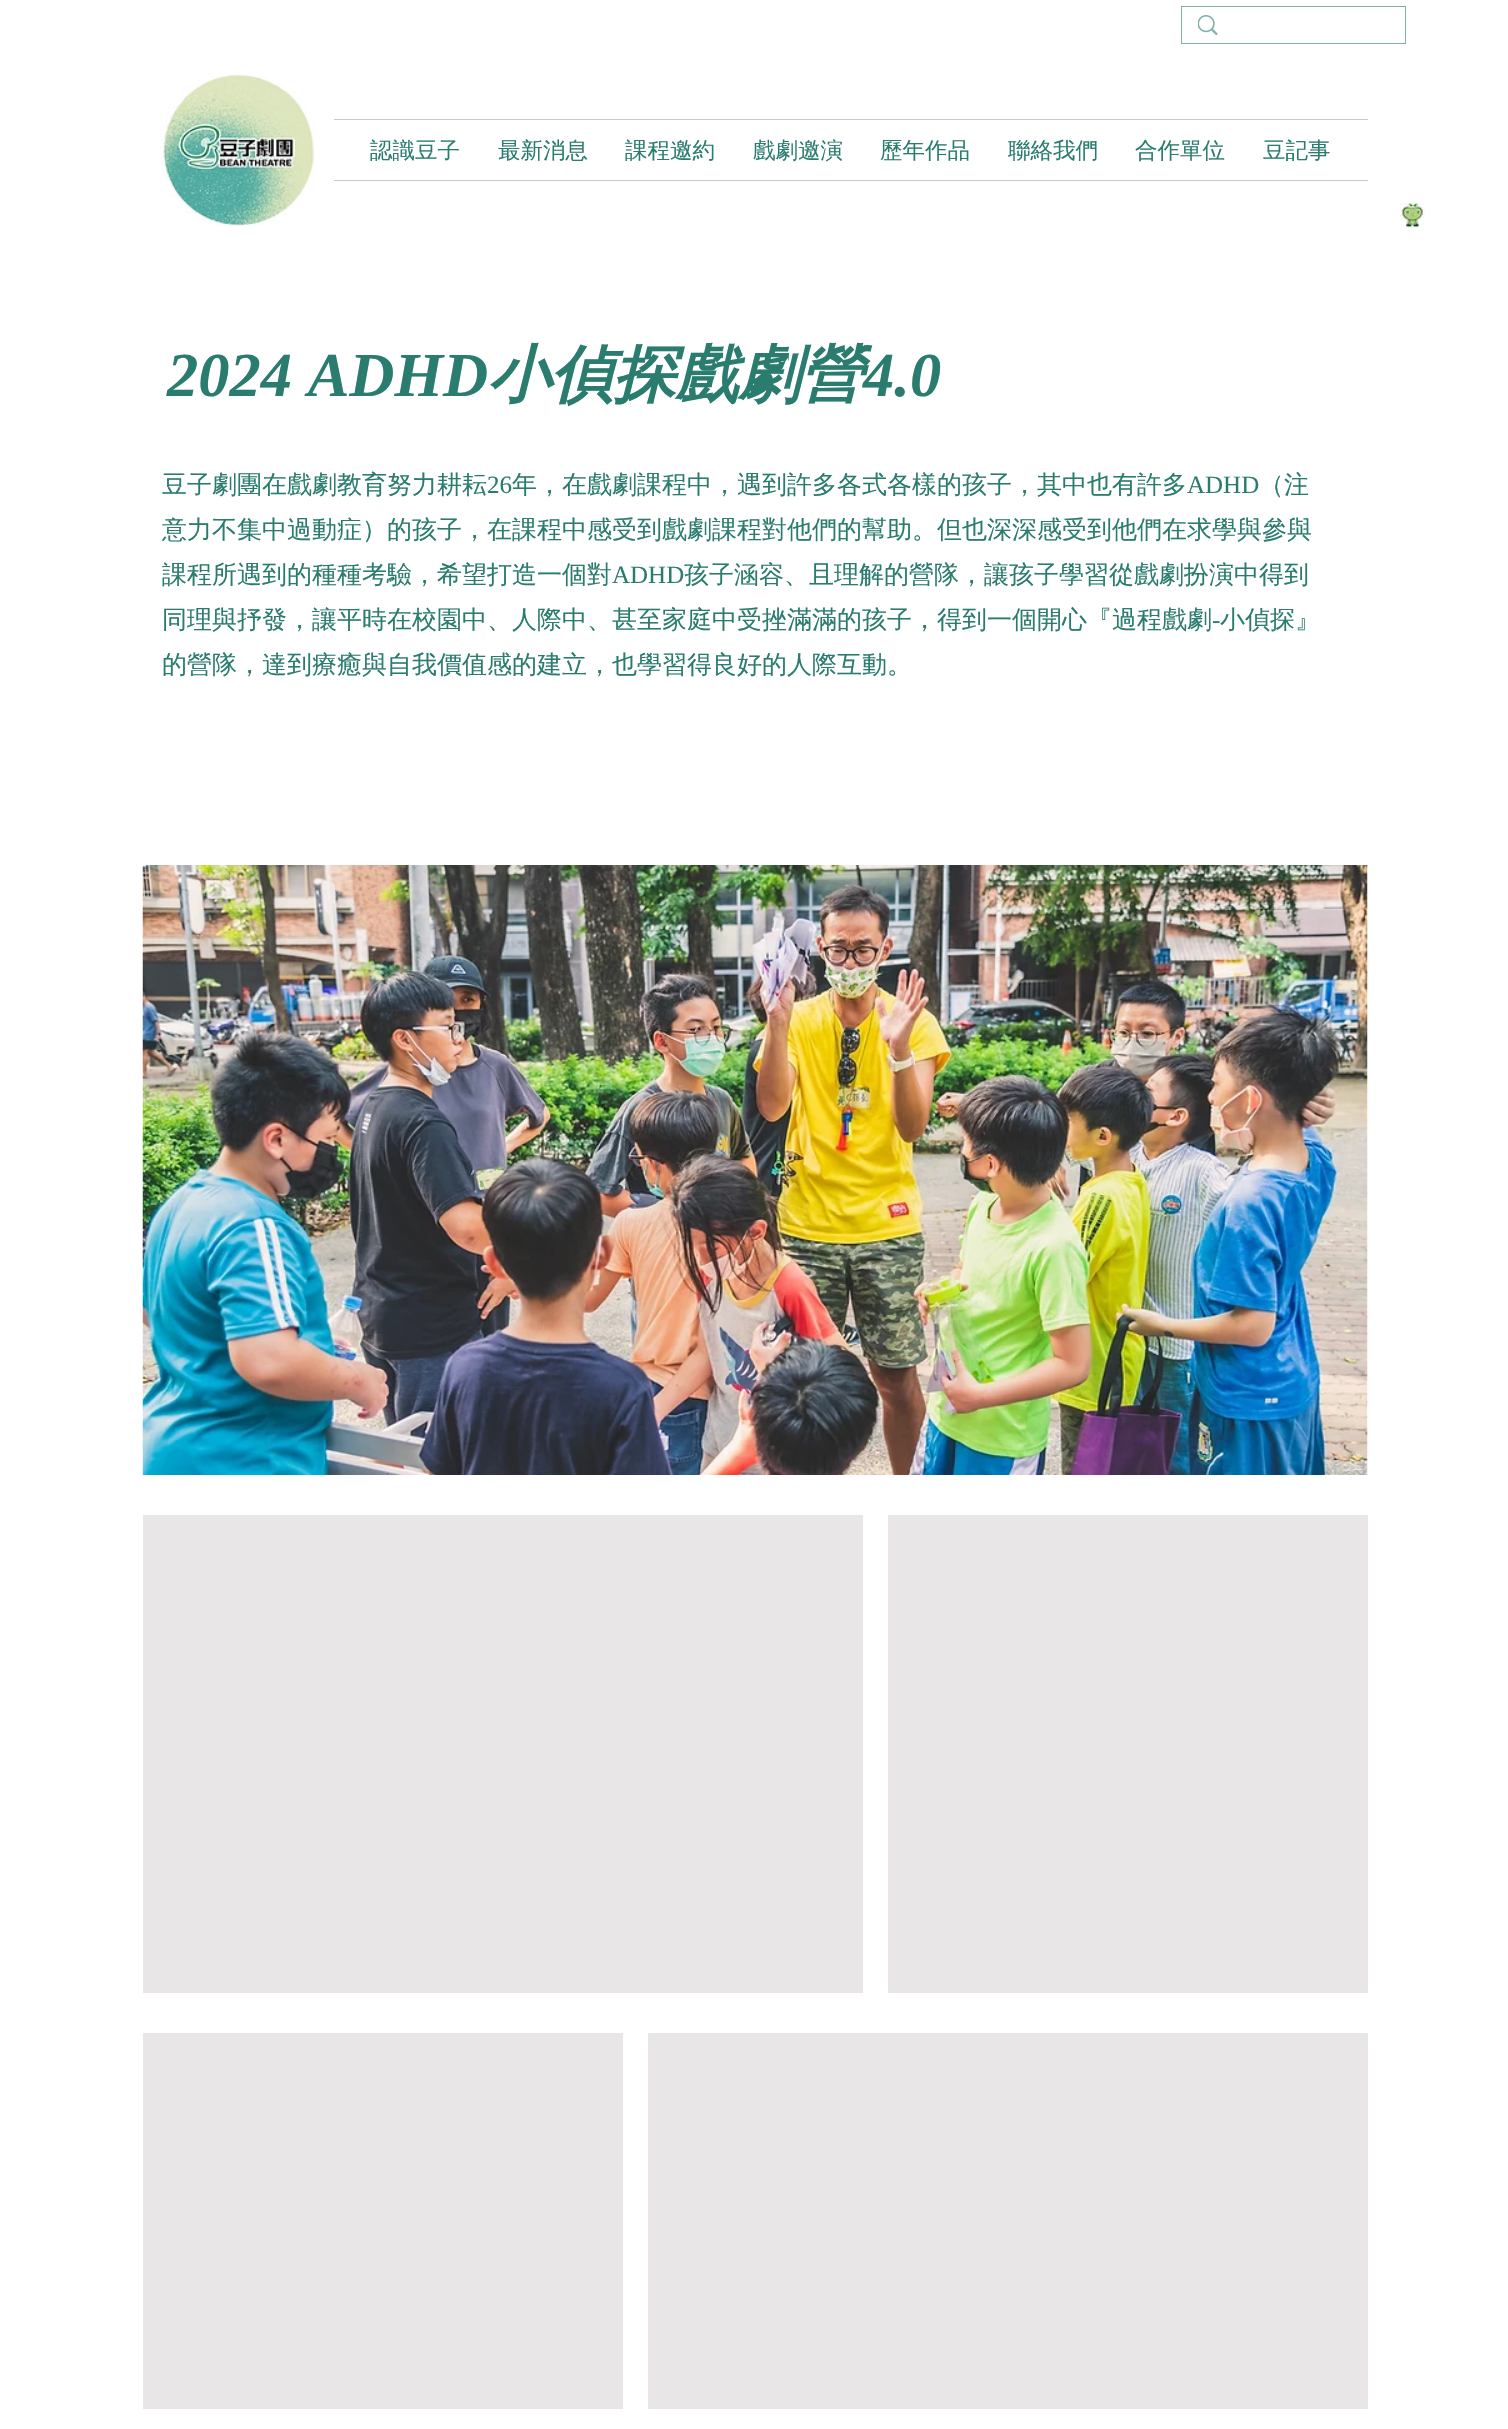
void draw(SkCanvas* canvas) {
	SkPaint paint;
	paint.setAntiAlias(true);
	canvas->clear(0xffffffff);
	paint.setStroke(true);
	paint.setStrokeWidth(1);
	paint.setColor(0xff7fb0a9);
	canvas->drawRect(SkRect::MakeXYWH(1181.5, 6.5, 224, 37), paint);
	canvas->drawImageRect(SkImages::DeferredFromEncodedData(SkData::MakeFromFileName("img1.png")), SkRect::MakeXYWH(1198, 15, 20, 20), SkSamplingOptions());
	canvas->drawImageRect(SkImages::DeferredFromEncodedData(SkData::MakeFromFileName("img2.png")), SkRect::MakeXYWH(161, 74, 153, 152), SkSamplingOptions());
	paint.setStroke(false);
	paint.setColor(0xffcacaca);
	canvas->drawRect(SkRect::MakeXYWH(334, 119, 1034, 1), paint);
	canvas->drawRect(SkRect::MakeXYWH(334, 180, 1034, 1), paint);
	SkFont f1(fontMgr->matchFamilyStyle("WenQuanYi Zen Hei", SkFontStyle(500, SkFontStyle::kNormal_Width, SkFontStyle::kUpright_Slant)), 22.5);
	f1.setSubpixel(true);
	paint.setColor(0xff2a7c6f);
	canvas->drawString("認識豆子", 370, 158, f1, paint);
	canvas->drawString("最新消息", 498, 158, f1, paint);
	canvas->drawString("課程邀約", 625, 158, f1, paint);
	canvas->drawString("戲劇邀演", 753, 158, f1, paint);
	canvas->drawString("歷年作品", 880, 158, f1, paint);
	canvas->drawString("聯絡我們", 1008, 158, f1, paint);
	canvas->drawString("合作單位", 1135, 158, f1, paint);
	canvas->drawString("豆記事", 1263, 158, f1, paint);
	canvas->drawImageRect(SkImages::DeferredFromEncodedData(SkData::MakeFromFileName("img3.png")), SkRect::MakeXYWH(1400, 202, 25, 26), SkSamplingOptions());
	SkFont f2(fontMgr->matchFamilyStyle("Liberation Serif", SkFontStyle::BoldItalic()), 62.5);
	f2.setSubpixel(true);
	canvas->drawString("2024 ADHD", 167, 396, f2, paint);
	SkFont f3(fontMgr->matchFamilyStyle("WenQuanYi Zen Hei", SkFontStyle::BoldItalic()), 62.5);
	f3.setSubpixel(true);
	canvas->drawString("小偵探戲劇營", 488, 396, f3, paint);
	canvas->drawString("4.0", 863, 396, f2, paint);
	SkFont f4(fontMgr->matchFamilyStyle("WenQuanYi Zen Hei", SkFontStyle(500, SkFontStyle::kNormal_Width, SkFontStyle::kUpright_Slant)), 25);
	f4.setSubpixel(true);
	canvas->drawString("豆子劇團在戲劇教育努力耕耘", 162, 493, f4, paint);
	SkFont f5(fontMgr->matchFamilyStyle("Liberation Serif", SkFontStyle::Normal()), 25);
	f5.setSubpixel(true);
	canvas->drawString("26", 487, 493, f5, paint);
	canvas->drawString("年，在戲劇課程中，遇到許多各式各樣的孩子，其中也有許多", 512, 493, f4, paint);
	canvas->drawString("ADHD", 1187, 493, f5, paint);
	canvas->drawString("（注", 1259, 493, f4, paint);
	canvas->drawString("意力不集中過動症）的孩子，在課程中感受到戲劇課程對他們的幫助。但也深深感受到他們在求學與參與", 162, 538, f4, paint);
	canvas->drawString("課程所遇到的種種考驗，希望打造一個對", 162, 583, f4, paint);
	canvas->drawString("ADHD", 612, 583, f5, paint);
	canvas->drawString("孩子涵容、且理解的營隊，讓孩子學習從戲劇扮演中得到", 684, 583, f4, paint);
	canvas->drawString("同理與抒發，讓平時在校園中、人際中、甚至家庭中受挫滿滿的孩子，得到一個開心『過程戲劇", 162, 628, f4, paint);
	canvas->drawString("-", 1212, 628, f5, paint);
	canvas->drawString("小偵探』", 1220, 628, f4, paint);
	canvas->drawString("的營隊，達到療癒與自我價值感的建立，也學習得良好的人際互動。", 162, 673, f4, paint);
	canvas->drawImageRect(SkImages::DeferredFromEncodedData(SkData::MakeFromFileName("img4.png")), SkRect::MakeXYWH(142, 865, 1226, 610), SkSamplingOptions());
	paint.setColor(0xffe8e6e6);
	canvas->drawRect(SkRect::MakeXYWH(143, 1515, 720, 478), paint);
	canvas->drawRect(SkRect::MakeXYWH(888, 1515, 480, 478), paint);
	canvas->drawRect(SkRect::MakeXYWH(143, 2033, 480, 376), paint);
	canvas->drawRect(SkRect::MakeXYWH(648, 2033, 720, 376), paint);
}
